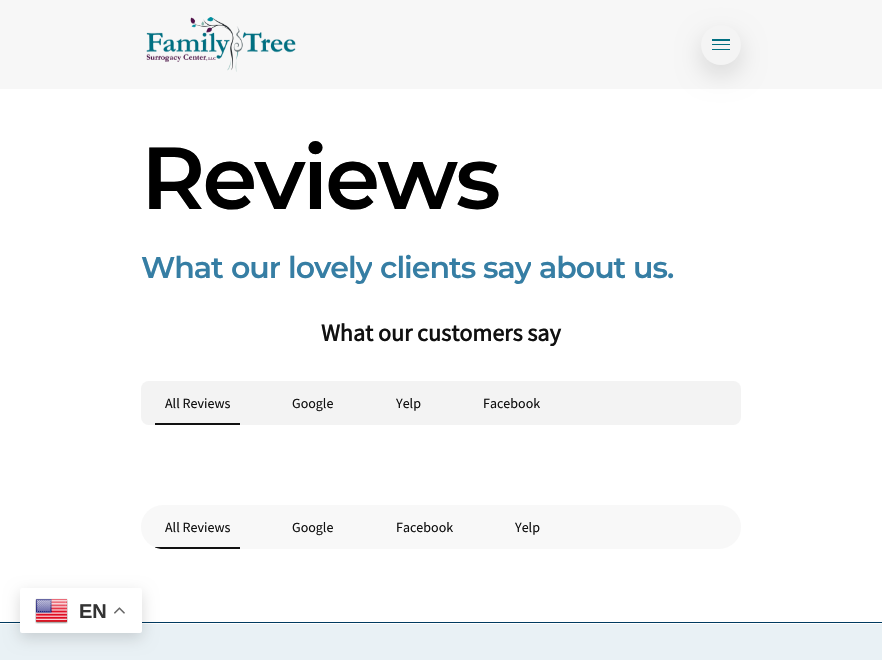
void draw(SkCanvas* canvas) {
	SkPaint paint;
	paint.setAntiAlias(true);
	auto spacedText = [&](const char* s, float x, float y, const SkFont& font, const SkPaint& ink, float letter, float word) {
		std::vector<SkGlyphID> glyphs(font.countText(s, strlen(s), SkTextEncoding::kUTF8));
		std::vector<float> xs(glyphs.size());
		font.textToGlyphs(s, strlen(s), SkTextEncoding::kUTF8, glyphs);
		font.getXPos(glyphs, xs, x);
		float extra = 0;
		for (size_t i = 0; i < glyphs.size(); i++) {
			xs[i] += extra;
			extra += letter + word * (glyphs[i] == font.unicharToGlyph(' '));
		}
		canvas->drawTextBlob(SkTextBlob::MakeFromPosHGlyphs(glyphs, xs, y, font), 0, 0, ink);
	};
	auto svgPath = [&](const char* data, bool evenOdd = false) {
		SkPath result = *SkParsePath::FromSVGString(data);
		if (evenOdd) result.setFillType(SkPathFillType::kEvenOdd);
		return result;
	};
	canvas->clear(0xffffffff);
	paint.setColor(0xfff7f7f7);
	canvas->drawRect(SkRect::MakeXYWH(0, 0, 882, 89), paint);
	canvas->drawImageRect(SkImages::DeferredFromEncodedData(SkData::MakeFromFileName("img1.png")), SkRect::MakeXYWH(146, 17, 150, 55), SkSamplingOptions());
	paint.setColor(0x21000000);
	paint.setMaskFilter(SkMaskFilter::MakeBlur(kNormal_SkBlurStyle, 12.5));
	canvas->drawRoundRect(SkRect::MakeXYWH(701, 35, 40, 40), 20, 20, paint);
	paint.setMaskFilter(nullptr);
	paint.setColor(0xfff4f4f4);
	canvas->drawCircle(721, 45, 20, paint);
	paint.setColor(0xff006f81);
	canvas->drawRect(SkRect::MakeXYWH(712, 39, 18, 2), paint);
	canvas->drawRect(SkRect::MakeXYWH(712, 49, 18, 1), paint);
	canvas->drawRect(SkRect::MakeXYWH(712, 44, 18, 1), paint);
	SkFont f1(fontMgr->matchFamilyStyle("Montserrat", SkFontStyle(600, SkFontStyle::kNormal_Width, SkFontStyle::kUpright_Slant)), 88);
	f1.setSubpixel(true);
	paint.setColor(0xff000000);
	spacedText("Reviews", 141, 209, f1, paint, -2.75, 0);
	SkFont f2(fontMgr->matchFamilyStyle("Montserrat", SkFontStyle(600, SkFontStyle::kNormal_Width, SkFontStyle::kUpright_Slant)), 30);
	f2.setSubpixel(true);
	paint.setColor(0xff367ea4);
	spacedText("What", 141, 278, f2, paint, -1, 0);
	canvas->save();
	canvas->clipRect(SkRect::MakeXYWH(231, 250, 49, 36));
	spacedText("our", 231, 278, f2, paint, -1, 0);
	canvas->restore();
	canvas->save();
	canvas->clipRect(SkRect::MakeXYWH(288, 250, 84, 36));
	spacedText("lovely", 288, 278, f2, paint, -1, 0);
	canvas->restore();
	spacedText("clients", 380, 278, f2, paint, -1, 0);
	canvas->save();
	canvas->clipRect(SkRect::MakeXYWH(483, 250, 48, 36));
	spacedText("say", 483, 278, f2, paint, -1, 0);
	canvas->restore();
	canvas->save();
	canvas->clipRect(SkRect::MakeXYWH(539, 250, 86, 36));
	spacedText("about", 539, 278, f2, paint, -1, 0);
	canvas->restore();
	spacedText("us.", 633, 278, f2, paint, -1, 0);
	SkFont f3(fontMgr->matchFamilyStyle("Source Sans Pro", SkFontStyle::Bold()), 24);
	f3.setSubpixel(true);
	paint.setColor(0xff111111);
	canvas->drawString("What our customers say", 321, 341, f3, paint);
	paint.setColor(0xfff3f3f3);
	canvas->drawRoundRect(SkRect::MakeXYWH(141, 381, 600, 44), 8, 8, paint);
	SkFont f4(fontMgr->matchFamilyStyle("Source Sans Pro", SkFontStyle::Normal()), 14);
	f4.setSubpixel(true);
	paint.setColor(0xff111111);
	canvas->drawString("All Reviews", 165, 408, f4, paint);
	canvas->drawRect(SkRect::MakeXYWH(155, 423, 85, 2), paint);
	canvas->drawString("Google", 292, 408, f4, paint);
	canvas->drawString("Yelp", 396, 408, f4, paint);
	canvas->drawString("Facebook", 483, 408, f4, paint);
	paint.setColor(0xfff8f8f8);
	canvas->drawRoundRect(SkRect::MakeXYWH(141, 505, 600, 44), 22, 22, paint);
	paint.setColor(0xff111111);
	canvas->drawString("All Reviews", 165, 532, f4, paint);
	canvas->save();
	canvas->clipPath(svgPath("M163 505H719C731 505 741 515 741 527C741 539 731 549 719 549H163C151 549 141 539 141 527C141 515 151 505 163 505Z"), true);
	canvas->drawRect(SkRect::MakeXYWH(155, 547, 85, 2), paint);
	canvas->restore();
	canvas->drawString("Google", 292, 532, f4, paint);
	canvas->drawString("Facebook", 396, 532, f4, paint);
	canvas->drawString("Yelp", 515, 532, f4, paint);
	paint.setColor(0xff003a60);
	canvas->drawRect(SkRect::MakeXYWH(0, 622, 882, 1), paint);
	paint.setColor(0xffe9f1f5);
	canvas->drawRect(SkRect::MakeXYWH(0, 624, 882, 36), paint);
	paint.setColor(0x26000000);
	paint.setMaskFilter(SkMaskFilter::MakeBlur(kNormal_SkBlurStyle, 7.5));
	canvas->drawRoundRect(SkRect::MakeXYWH(20, 593, 122, 45), 2, 2, paint);
	paint.setMaskFilter(nullptr);
	paint.setColor(0xffffffff);
	canvas->drawRoundRect(SkRect::MakeXYWH(20, 588, 122, 45), 2, 2, paint);
	canvas->drawImageRect(SkImages::DeferredFromEncodedData(SkData::MakeFromFileName("img2.png")), SkRect::MakeXYWH(35, 598, 33, 26), SkSamplingOptions());
	SkFont f5(fontMgr->matchFamilyStyle("Liberation Sans", SkFontStyle::Bold()), 20);
	f5.setSubpixel(true);
	paint.setColor(0xff333333);
	canvas->drawString("EN", 79, 618, f5, paint);
	canvas->drawImageRect(SkImages::DeferredFromEncodedData(SkData::MakeFromFileName("img3.png")), SkRect::MakeXYWH(114, 607, 11, 7), SkSamplingOptions());
}
